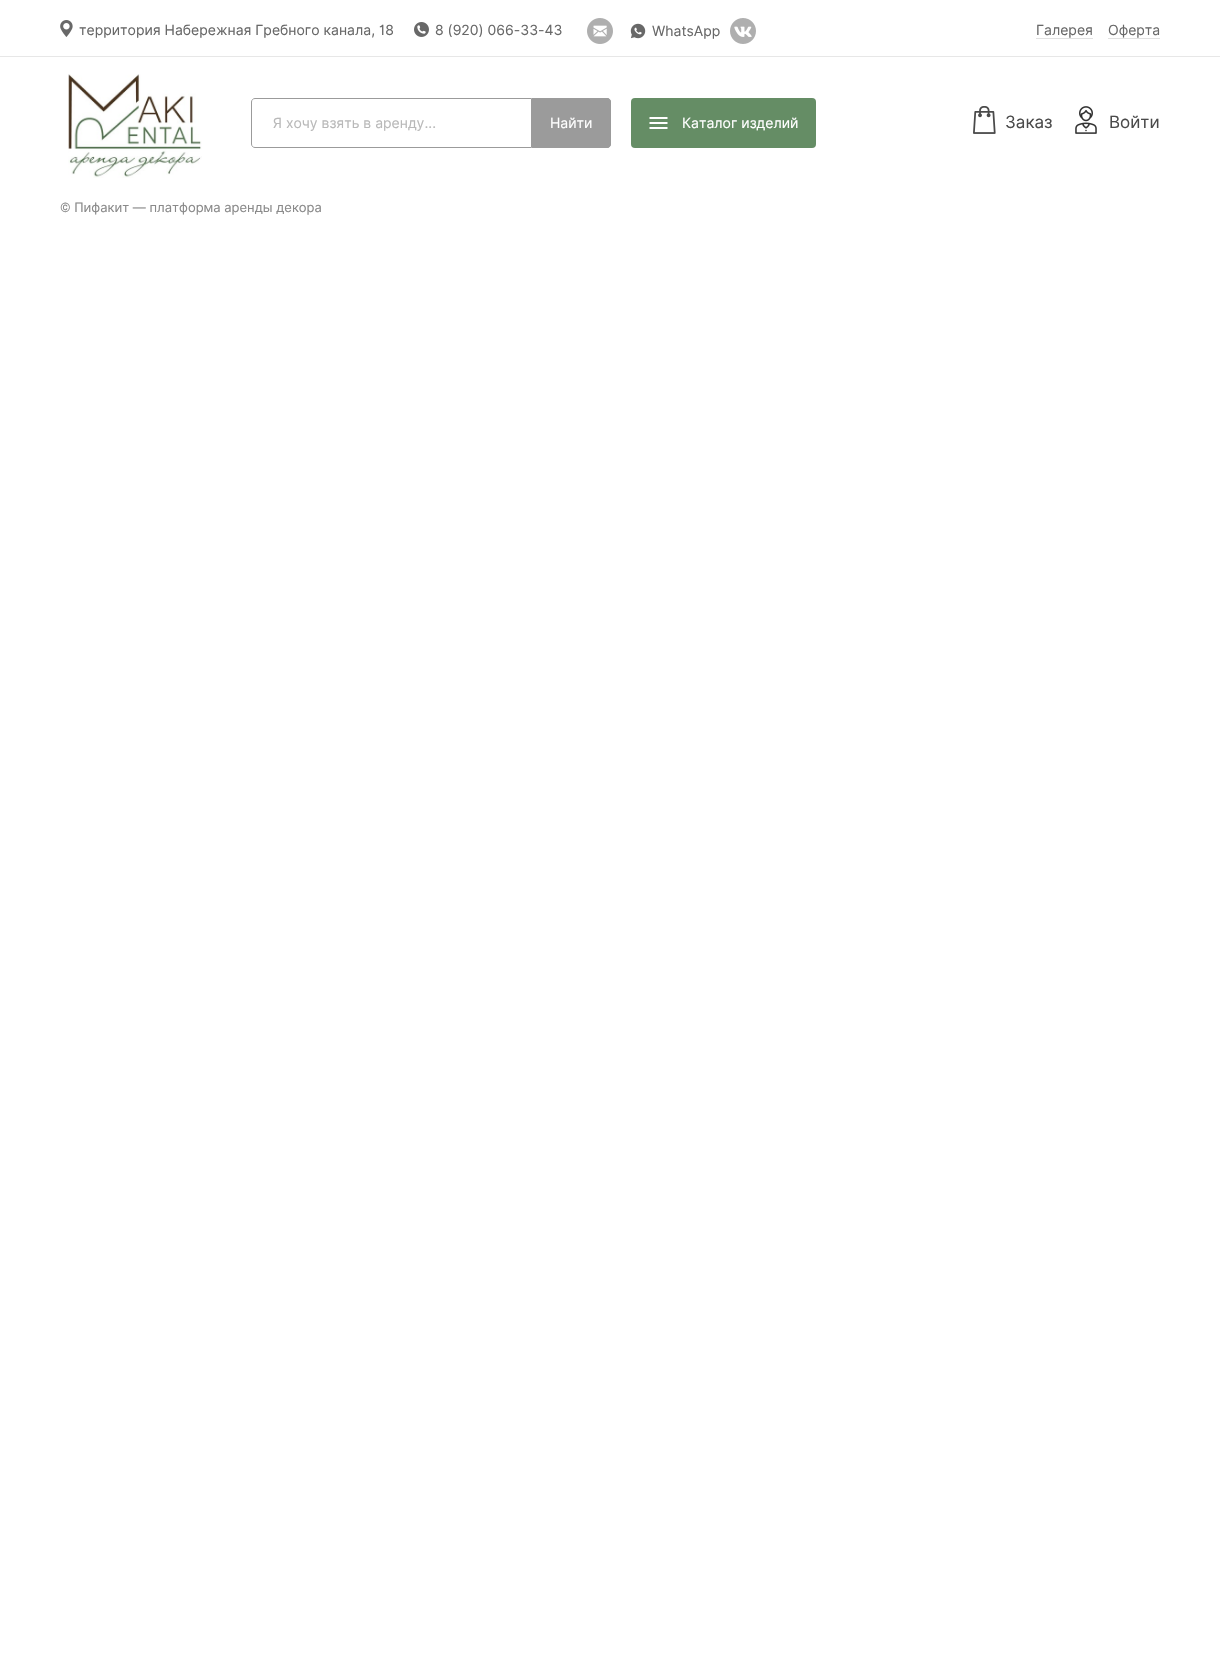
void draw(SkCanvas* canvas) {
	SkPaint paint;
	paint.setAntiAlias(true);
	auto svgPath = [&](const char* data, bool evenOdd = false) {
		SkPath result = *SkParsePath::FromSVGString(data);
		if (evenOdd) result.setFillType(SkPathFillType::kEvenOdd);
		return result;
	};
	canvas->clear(0xffffffff);
	paint.setColor(0xffe7e7e7);
	canvas->drawRect(SkRect::MakeXYWH(0, 56, 1220, 1), paint);
	canvas->drawImageRect(SkImages::DeferredFromEncodedData(SkData::MakeFromFileName("img1.png")), SkRect::MakeXYWH(60, 20, 13, 17), SkSamplingOptions());
	SkFont f1(fontMgr->matchFamilyStyle("Inter", SkFontStyle::Normal()), 14);
	f1.setSubpixel(true);
	paint.setColor(0xff686868);
	canvas->drawString("территория Набережная Гребного канала, 18", 79, 35, f1, paint);
	canvas->drawImageRect(SkImages::DeferredFromEncodedData(SkData::MakeFromFileName("img2.png")), SkRect::MakeXYWH(414, 22, 15, 15), SkSamplingOptions());
	canvas->drawString("8 (920) 066-33-43", 435, 35, f1, paint);
	canvas->drawImageRect(SkImages::DeferredFromEncodedData(SkData::MakeFromFileName("img3.png")), SkRect::MakeXYWH(587, 18, 26, 26), SkSamplingOptions());
	canvas->drawImageRect(SkImages::DeferredFromEncodedData(SkData::MakeFromFileName("img4.png")), SkRect::MakeXYWH(630, 23, 16, 16), SkSamplingOptions());
	canvas->drawString("WhatsApp", 652, 36, f1, paint);
	canvas->drawImageRect(SkImages::DeferredFromEncodedData(SkData::MakeFromFileName("img5.png")), SkRect::MakeXYWH(730, 18, 26, 26), SkSamplingOptions());
	canvas->drawString("Галерея", 1036, 35, f1, paint);
	paint.setColor(0xffe1e1e1);
	canvas->drawRect(SkRect::MakeXYWH(1036, 38, 57, 1), paint);
	paint.setColor(0xff686868);
	canvas->drawString("Оферта", 1108, 35, f1, paint);
	paint.setColor(0xffe1e1e1);
	canvas->drawRect(SkRect::MakeXYWH(1108, 38, 52, 1), paint);
	canvas->drawImageRect(SkImages::DeferredFromEncodedData(SkData::MakeFromFileName("img6.png")), SkRect::MakeXYWH(68, 74, 134, 104), SkSamplingOptions());
	paint.setStroke(true);
	paint.setStrokeWidth(1);
	paint.setColor(0xff9b9b9b);
	canvas->drawPath(svgPath("M255 98.5H531.5V147.5H255C253 147.5 251.5 146 251.5 144V102C251.5 100 253 98.5 255 98.5Z"), paint);
	paint.setStroke(false);
	paint.setColor(0xffb9b9b9);
	canvas->drawString("Я хочу взять в аренду...", 273, 128, f1, paint);
	paint.setColor(0xff9b9b9b);
	canvas->drawPath(svgPath("M532 98H607C609 98 611 100 611 102V144C611 146 609 148 607 148H532Z"), paint);
	canvas->drawPath(svgPath("M532 98H607C609 98 611 100 611 102V144C611 146 609 148 607 148H532ZM532 99H607C609 99 610 100 610 102V144C610 146 609 147 607 147H532Z", true), paint);
	paint.setColor(0xffffffff);
	canvas->drawString("Найти", 550, 128, f1, paint);
	paint.setColor(0xff658d65);
	canvas->drawRoundRect(SkRect::MakeXYWH(631, 98, 185, 50), 4, 4, paint);
	paint.setStroke(true);
	paint.setStrokeWidth(2);
	paint.setStrokeCap(SkPaint::kSquare_Cap);
	paint.setColor(0xffffffff);
	canvas->drawPath(svgPath("M650.5 128H666.5M650.5 118H666.5M650.5 123H666.5"), paint);
	paint.setStroke(false);
	canvas->drawString("Каталог изделий", 682, 128, f1, paint);
	canvas->drawImageRect(SkImages::DeferredFromEncodedData(SkData::MakeFromFileName("img7.png")), SkRect::MakeXYWH(973, 106, 23, 28), SkSamplingOptions());
	SkFont f2(fontMgr->matchFamilyStyle("Inter", SkFontStyle::Normal()), 17);
	f2.setSubpixel(true);
	paint.setColor(0xff4a4a4a);
	canvas->drawString("Заказ", 1005, 128, f2, paint);
	canvas->drawImageRect(SkImages::DeferredFromEncodedData(SkData::MakeFromFileName("img8.png")), SkRect::MakeXYWH(1075, 106, 22, 28), SkSamplingOptions());
	canvas->drawString("Войти", 1109, 128, f2, paint);
	SkFont f3(fontMgr->matchFamilyStyle("Inter", SkFontStyle::Normal()), 13);
	f3.setSubpixel(true);
	paint.setColor(0xff8a8a8a);
	canvas->drawString("© Пифакит — платформа аренды декора", 60, 212, f3, paint);
}
